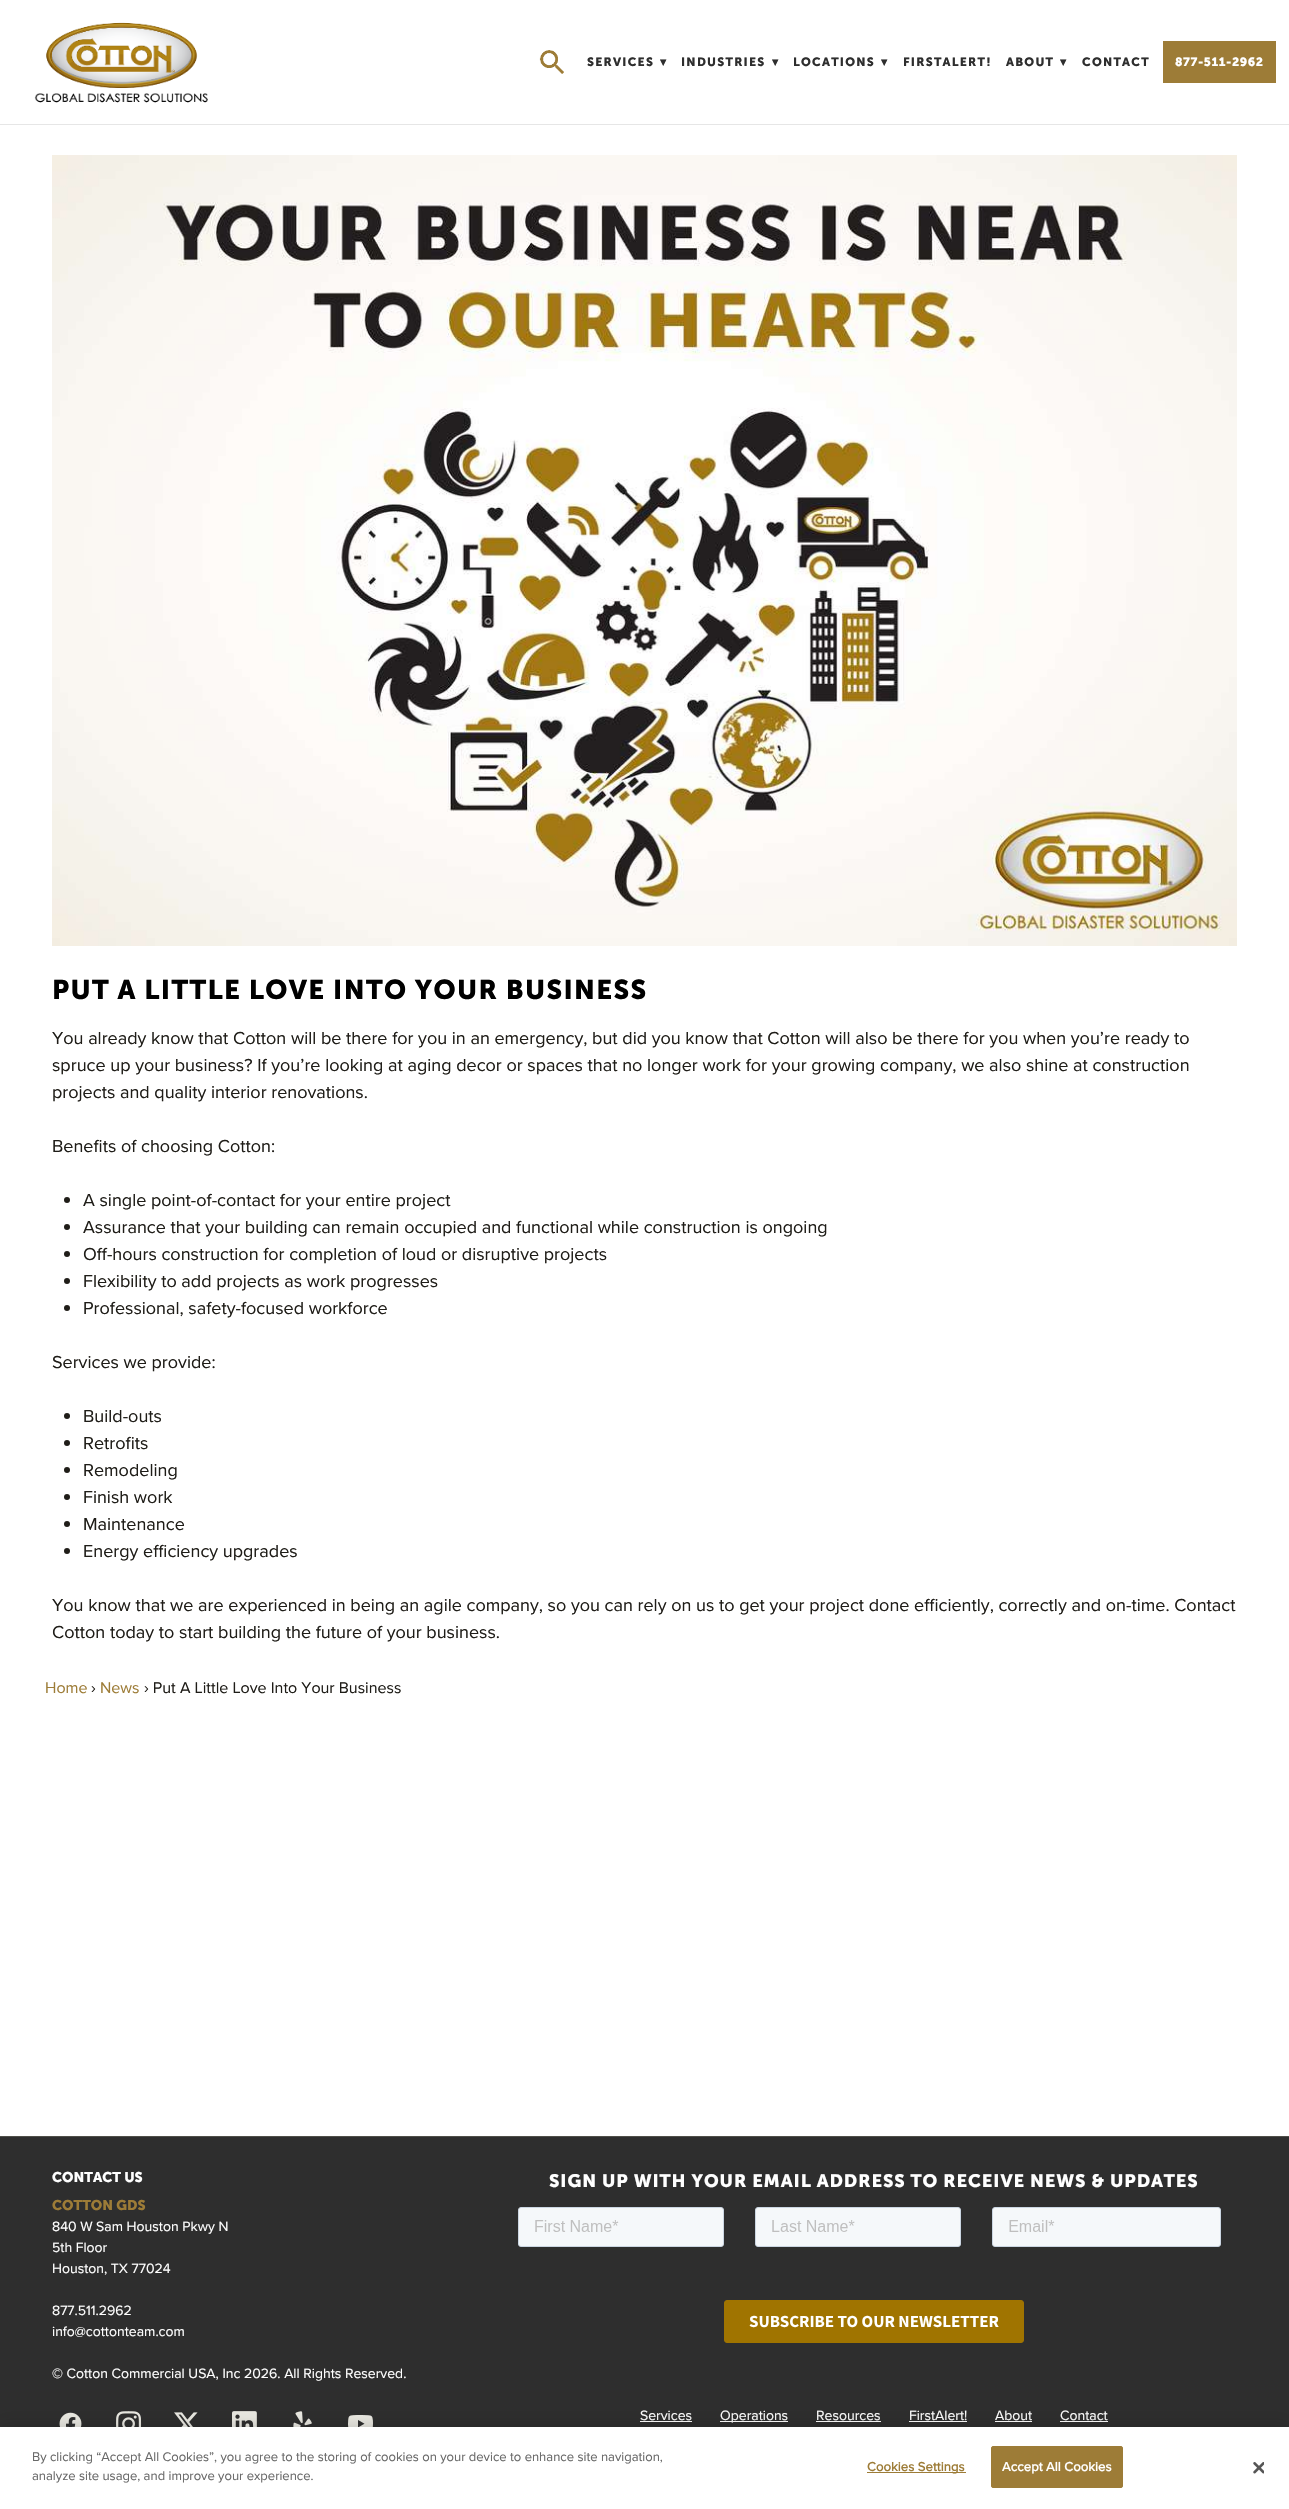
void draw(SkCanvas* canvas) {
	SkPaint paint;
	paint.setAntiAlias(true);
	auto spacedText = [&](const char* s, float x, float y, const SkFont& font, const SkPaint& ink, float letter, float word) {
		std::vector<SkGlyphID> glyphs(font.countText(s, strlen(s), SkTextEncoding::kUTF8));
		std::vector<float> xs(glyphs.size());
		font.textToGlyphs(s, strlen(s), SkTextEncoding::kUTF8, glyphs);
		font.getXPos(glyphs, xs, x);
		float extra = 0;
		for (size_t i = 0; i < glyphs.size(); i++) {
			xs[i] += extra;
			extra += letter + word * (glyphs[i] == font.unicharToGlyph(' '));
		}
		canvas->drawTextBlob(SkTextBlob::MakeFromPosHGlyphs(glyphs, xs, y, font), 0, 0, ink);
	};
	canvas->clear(0xffffffff);
	paint.setColor(0xffe6e6e6);
	canvas->drawRect(SkRect::MakeXYWH(0, 124, 1289, 1), paint);
	canvas->drawImageRect(SkImages::DeferredFromEncodedData(SkData::MakeFromFileName("img1.png")), SkRect::MakeXYWH(34, 22, 174, 81), SkSamplingOptions());
	canvas->drawImageRect(SkImages::DeferredFromEncodedData(SkData::MakeFromFileName("img2.png")), SkRect::MakeXYWH(539, 50, 25, 24), SkSamplingOptions());
	SkFont f1(fontMgr->matchFamilyStyle("Museo Sans", SkFontStyle::Bold()), 12);
	f1.setSubpixel(true);
	paint.setColor(0xff2e2e2e);
	spacedText("SERVICES", 587, 66, f1, paint, 1.25, 0);
	SkFont f2(fontMgr->matchFamilyStyle("DejaVu Sans", SkFontStyle::Bold()), 12);
	f2.setSubpixel(true);
	spacedText("▾", 660, 66, f2, paint, 1.25, 0);
	spacedText("INDUSTRIES", 681, 66, f1, paint, 1.25, 0);
	spacedText("▾", 772, 66, f2, paint, 1.25, 0);
	spacedText("LOCATIONS", 793, 66, f1, paint, 1.25, 0);
	spacedText("▾", 881, 66, f2, paint, 1.25, 0);
	spacedText("FIRSTALERT!", 903, 66, f1, paint, 1.25, 0);
	spacedText("ABOUT", 1006, 66, f1, paint, 1.25, 0);
	spacedText("▾", 1060, 66, f2, paint, 1.25, 0);
	spacedText("CONTACT", 1082, 66, f1, paint, 1.25, 0);
	paint.setColor(0xff9d7c37);
	canvas->drawRect(SkRect::MakeXYWH(1163, 41, 113, 42), paint);
	paint.setColor(0xffffffff);
	spacedText("877-511-2962", 1175, 66, f1, paint, 0.6, 0);
	canvas->drawImageRect(SkImages::DeferredFromEncodedData(SkData::MakeFromFileName("img3.png")), SkRect::MakeXYWH(52, 155, 1185, 791), SkSamplingOptions());
	SkFont f3(fontMgr->matchFamilyStyle("Museo Sans", SkFontStyle::Bold()), 27);
	f3.setSubpixel(true);
	paint.setColor(0xff000000);
	spacedText("PUT A LITTLE LOVE INTO YOUR BUSINESS", 52, 999, f3, paint, 1.35, 0);
	SkFont f4(fontMgr->matchFamilyStyle("Proxima Nova", SkFontStyle::Normal()), 18);
	f4.setSubpixel(true);
	paint.setColor(0xff1f1d18);
	canvas->drawString("You already know that Cotton will be there for you in an emergency, but did you know that Cotton will also be there for you when you’re ready to", 52, 1044, f4, paint);
	canvas->drawString("spruce up your business? If you’re looking at aging decor or spaces that no longer work for your growing company, we also shine at construction", 52, 1071, f4, paint);
	canvas->drawString("projects and quality interior renovations.", 52, 1098, f4, paint);
	canvas->drawString("Benefits of choosing Cotton:", 52, 1152, f4, paint);
	canvas->drawCircle(67, 1200, 3, paint);
	canvas->drawString("A single point-of-contact for your entire project", 83, 1206, f4, paint);
	canvas->drawCircle(67, 1227, 3, paint);
	canvas->drawString("Assurance that your building can remain occupied and functional while construction is ongoing", 83, 1233, f4, paint);
	canvas->drawCircle(67, 1254, 3, paint);
	canvas->drawString("Off-hours construction for completion of loud or disruptive projects", 83, 1260, f4, paint);
	canvas->drawCircle(67, 1281, 3, paint);
	canvas->drawString("Flexibility to add projects as work progresses", 83, 1287, f4, paint);
	canvas->drawCircle(67, 1308, 3, paint);
	canvas->drawString("Professional, safety-focused workforce", 83, 1314, f4, paint);
	canvas->drawString("Services we provide:", 52, 1368, f4, paint);
	canvas->drawCircle(67, 1416, 3, paint);
	canvas->drawString("Build-outs", 83, 1422, f4, paint);
	canvas->drawCircle(67, 1443, 3, paint);
	canvas->drawString("Retrofits", 83, 1449, f4, paint);
	canvas->drawCircle(67, 1470, 3, paint);
	canvas->drawString("Remodeling", 83, 1476, f4, paint);
	canvas->drawCircle(67, 1497, 3, paint);
	canvas->drawString("Finish work", 83, 1503, f4, paint);
	canvas->drawCircle(67, 1524, 3, paint);
	canvas->drawString("Maintenance", 83, 1530, f4, paint);
	canvas->drawCircle(67, 1551, 3, paint);
	canvas->drawString("Energy efficiency upgrades", 83, 1557, f4, paint);
	canvas->drawString("You know that we are experienced in being an agile company, so you can rely on us to get your project done efficiently, correctly and on-time. Contact", 52, 1611, f4, paint);
	canvas->drawString("Cotton today to start building the future of your business.", 52, 1638, f4, paint);
	SkFont f5(fontMgr->matchFamilyStyle("Proxima Nova", SkFontStyle::Normal()), 16);
	f5.setSubpixel(true);
	paint.setColor(0xff9d7c37);
	canvas->drawString("Home", 45, 1693, f5, paint);
	paint.setColor(0xff1f1d18);
	canvas->drawString("›", 91, 1693, f5, paint);
	paint.setColor(0xff9d7c37);
	canvas->drawString("News", 100, 1693, f5, paint);
	paint.setColor(0xff1f1d18);
	canvas->drawString("› Put A Little Love Into Your Business", 144, 1693, f5, paint);
	paint.setColor(0xff2e2e2e);
	canvas->drawRect(SkRect::MakeXYWH(0, 2137, 1289, 290), paint);
	paint.setColor(0xff504f49);
	canvas->drawRect(SkRect::MakeXYWH(0, 2136, 1289, 1), paint);
	SkFont f6(fontMgr->matchFamilyStyle("Museo Sans", SkFontStyle::Bold()), 14);
	f6.setSubpixel(true);
	paint.setColor(0xffffffff);
	canvas->drawString("CONTACT US", 52, 2182, f6, paint);
	paint.setColor(0xff9d7c37);
	canvas->drawString("COTTON GDS", 52, 2210, f6, paint);
	SkFont f7(fontMgr->matchFamilyStyle("Proxima Nova", SkFontStyle::Normal()), 14);
	f7.setSubpixel(true);
	paint.setColor(0xffffffff);
	canvas->drawString("840 W Sam Houston Pkwy N", 52, 2231, f7, paint);
	canvas->drawString("5th Floor", 52, 2252, f7, paint);
	canvas->drawString("Houston, TX 77024", 52, 2273, f7, paint);
	canvas->drawString("877.511.2962", 52, 2315, f7, paint);
	canvas->drawString("info@cottonteam.com", 52, 2336, f7, paint);
	canvas->drawString("© Cotton Commercial USA, Inc 2026. All Rights Reserved.", 52, 2378, f7, paint);
	SkFont f8(fontMgr->matchFamilyStyle("Museo Sans", SkFontStyle::Bold()), 18);
	f8.setSubpixel(true);
	spacedText("SIGN UP WITH YOUR EMAIL ADDRESS TO RECEIVE NEWS & UPDATES", 549, 2187, f8, paint, 0.9, 0);
	canvas->drawImageRect(SkImages::DeferredFromEncodedData(SkData::MakeFromFileName("img4.png")), SkRect::MakeXYWH(518, 2207, 703, 136), SkSamplingOptions());
	canvas->drawImageRect(SkImages::DeferredFromEncodedData(SkData::MakeFromFileName("img5.png")), SkRect::MakeXYWH(59, 2412, 23, 15), SkSamplingOptions());
	canvas->drawImageRect(SkImages::DeferredFromEncodedData(SkData::MakeFromFileName("img6.png")), SkRect::MakeXYWH(116, 2411, 26, 16), SkSamplingOptions());
	canvas->drawImageRect(SkImages::DeferredFromEncodedData(SkData::MakeFromFileName("img7.png")), SkRect::MakeXYWH(174, 2412, 24, 15), SkSamplingOptions());
	canvas->drawImageRect(SkImages::DeferredFromEncodedData(SkData::MakeFromFileName("img8.png")), SkRect::MakeXYWH(232, 2411, 25, 16), SkSamplingOptions());
	canvas->drawImageRect(SkImages::DeferredFromEncodedData(SkData::MakeFromFileName("img9.png")), SkRect::MakeXYWH(293, 2411, 19, 16), SkSamplingOptions());
	canvas->drawImageRect(SkImages::DeferredFromEncodedData(SkData::MakeFromFileName("img10.png")), SkRect::MakeXYWH(348, 2415, 25, 12), SkSamplingOptions());
	canvas->drawString("Services", 640, 2420, f7, paint);
	canvas->drawRect(SkRect::MakeXYWH(640, 2421, 52, 1), paint);
	canvas->drawRect(SkRect::MakeXYWH(720, 2421, 68, 1), paint);
	canvas->drawString("Operations", 720, 2420, f7, paint);
	canvas->drawString("Resources", 816, 2420, f7, paint);
	canvas->drawRect(SkRect::MakeXYWH(816, 2421, 65, 1), paint);
	canvas->drawString("FirstAlert!", 909, 2420, f7, paint);
	canvas->drawRect(SkRect::MakeXYWH(909, 2421, 58, 1), paint);
	canvas->drawString("About", 995, 2420, f7, paint);
	canvas->drawRect(SkRect::MakeXYWH(995, 2421, 37, 1), paint);
	canvas->drawString("Contact", 1060, 2420, f7, paint);
	canvas->drawRect(SkRect::MakeXYWH(1060, 2421, 48, 1), paint);
	paint.setColor(0x33000000);
	paint.setMaskFilter(SkMaskFilter::MakeBlur(kNormal_SkBlurStyle, 9));
	canvas->drawRect(SkRect::MakeXYWH(0, 2427, 1289, 82), paint);
	paint.setMaskFilter(nullptr);
	paint.setColor(0xffffffff);
	canvas->drawRect(SkRect::MakeXYWH(0, 2427, 1289, 82), paint);
	SkFont f9(fontMgr->matchFamilyStyle("Proxima Nova", SkFontStyle::Normal()), 13);
	f9.setSubpixel(true);
	paint.setColor(0xff696969);
	canvas->drawString("By clicking “Accept All Cookies”, you agree to the storing of cookies on your device to enhance site navigation,", 32, 2461, f9, paint);
	canvas->drawString("analyze site usage, and improve your experience.", 32, 2480, f9, paint);
	paint.setColor(0xff9d7c37);
	canvas->drawRect(SkRect::MakeXYWH(867, 2472, 99, 1), paint);
	SkFont f10(fontMgr->matchFamilyStyle("Proxima Nova", SkFontStyle::Bold()), 13);
	f10.setSubpixel(true);
	spacedText("Cookies Settings", 867, 2471, f10, paint, 0.1, 0);
	canvas->drawRoundRect(SkRect::MakeXYWH(991.5, 2446.5, 131, 41), 1.5, 1.5, paint);
	paint.setStroke(true);
	paint.setStrokeWidth(1);
	canvas->drawRoundRect(SkRect::MakeXYWH(991.5, 2446.5, 131, 41), 1.5, 1.5, paint);
	paint.setStroke(false);
	paint.setColor(0xffffffff);
	spacedText("Accept All Cookies", 1002, 2471, f10, paint, 0.1, 0);
	canvas->drawImageRect(SkImages::DeferredFromEncodedData(SkData::MakeFromFileName("img11.png")), SkRect::MakeXYWH(1253, 2462, 11, 12), SkSamplingOptions());
}
